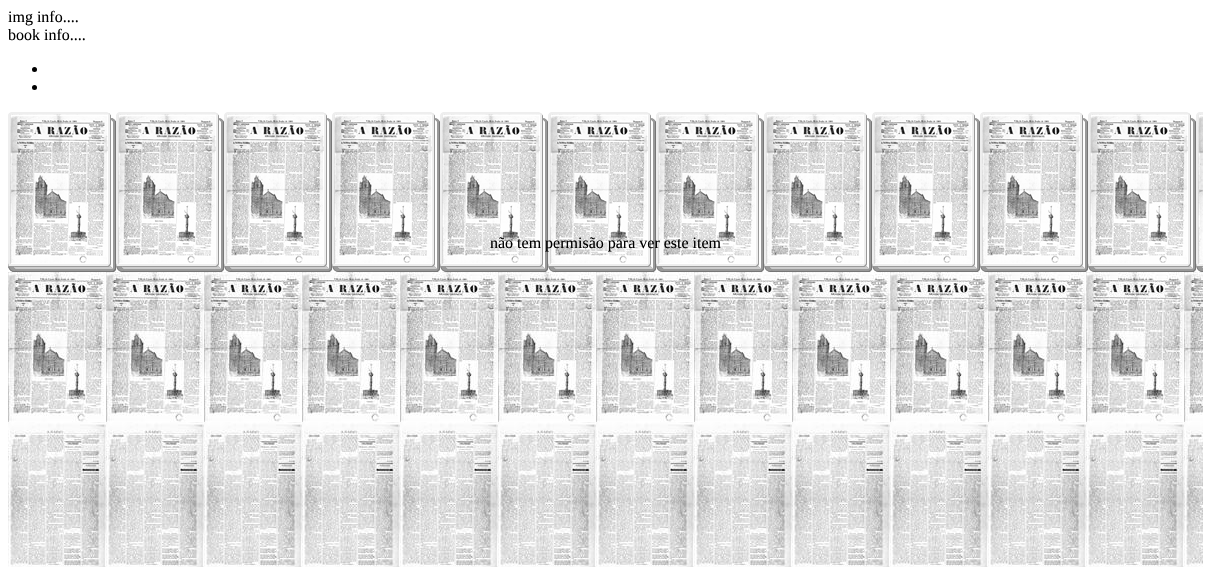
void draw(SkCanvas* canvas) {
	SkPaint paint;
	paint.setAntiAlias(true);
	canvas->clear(0xffffffff);
	SkFont f1(fontMgr->matchFamilyStyle("Liberation Serif", SkFontStyle::Normal()), 16);
	f1.setSubpixel(true);
	paint.setColor(0xff000000);
	canvas->drawString("img info....", 8, 22, f1, paint);
	canvas->drawString("book info....", 8, 40, f1, paint);
	canvas->drawCircle(34.5, 69.5, 2.5, paint);
	canvas->drawCircle(34.5, 87.5, 2.5, paint);
	canvas->drawImageRect(SkImages::DeferredFromEncodedData(SkData::MakeFromFileName("img1.png")), SkRect::MakeXYWH(8, 112, 1195, 160), SkSamplingOptions());
	canvas->drawImageRect(SkImages::DeferredFromEncodedData(SkData::MakeFromFileName("img2.png")), SkRect::MakeXYWH(8, 113, 108, 159), SkSamplingOptions());
	canvas->drawImageRect(SkImages::DeferredFromEncodedData(SkData::MakeFromFileName("img3.png")), SkRect::MakeXYWH(8, 272, 1195, 150), SkSamplingOptions());
	canvas->drawImageRect(SkImages::DeferredFromEncodedData(SkData::MakeFromFileName("img4.png")), SkRect::MakeXYWH(8, 422, 1195, 145), SkSamplingOptions());
	canvas->drawString("não tem permisão para ver este item", 490, 248, f1, paint);
}
